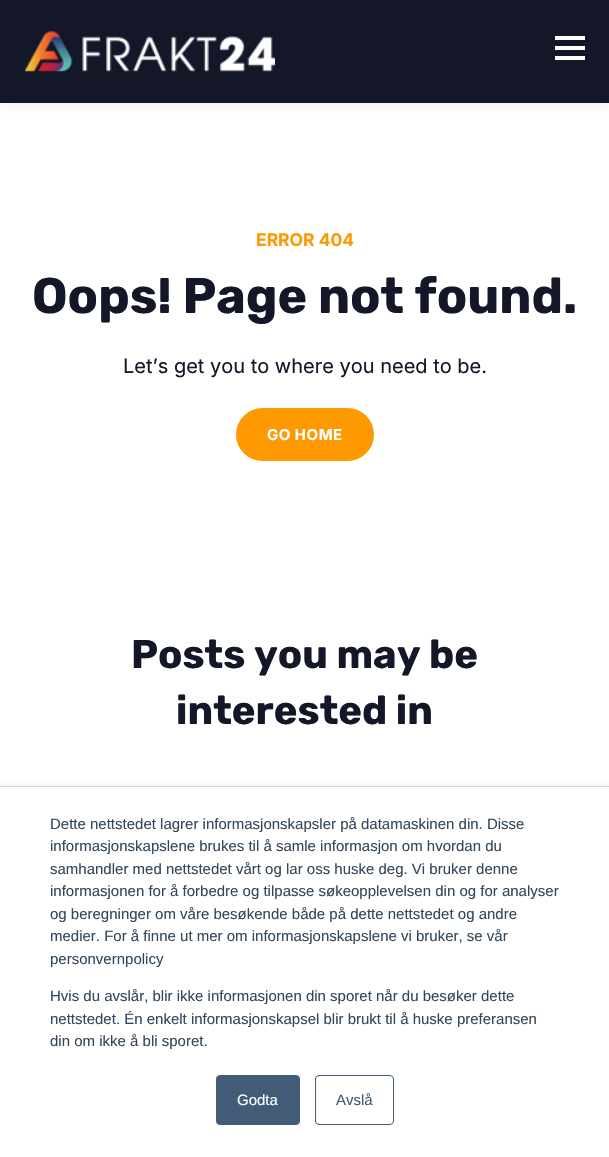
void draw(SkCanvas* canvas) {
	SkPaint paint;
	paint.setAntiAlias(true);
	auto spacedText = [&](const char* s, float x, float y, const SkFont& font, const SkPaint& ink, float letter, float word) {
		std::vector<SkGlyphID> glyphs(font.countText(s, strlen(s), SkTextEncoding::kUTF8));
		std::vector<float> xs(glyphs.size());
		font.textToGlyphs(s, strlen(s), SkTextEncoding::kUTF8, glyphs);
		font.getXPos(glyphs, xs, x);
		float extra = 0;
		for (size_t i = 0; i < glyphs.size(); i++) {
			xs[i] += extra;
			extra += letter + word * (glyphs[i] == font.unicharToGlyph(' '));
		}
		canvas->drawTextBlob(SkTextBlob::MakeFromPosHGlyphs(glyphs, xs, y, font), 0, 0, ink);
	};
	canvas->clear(0xffffffff);
	paint.setColor(0x1a9aa1b1);
	paint.setMaskFilter(SkMaskFilter::MakeBlur(kNormal_SkBlurStyle, 6));
	canvas->drawRect(SkRect::MakeXYWH(0, 6, 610, 103), paint);
	paint.setMaskFilter(nullptr);
	paint.setColor(0xff131728);
	canvas->drawRect(SkRect::MakeXYWH(0, 0, 609, 103), paint);
	canvas->drawImageRect(SkImages::DeferredFromEncodedData(SkData::MakeFromFileName("img1.png")), SkRect::MakeXYWH(25, 31, 250, 41), SkSamplingOptions());
	paint.setColor(0xffffffff);
	canvas->drawRect(SkRect::MakeXYWH(555, 46, 30, 4), paint);
	canvas->drawRect(SkRect::MakeXYWH(555, 36, 30, 4), paint);
	canvas->drawRect(SkRect::MakeXYWH(555, 56, 30, 4), paint);
	SkFont f1(fontMgr->matchFamilyStyle("Inter", SkFontStyle::Bold()), 17.5);
	f1.setSubpixel(true);
	paint.setColor(0xffff9902);
	canvas->drawString("ERROR 404", 256, 246, f1, paint);
	SkFont f2(fontMgr->matchFamilyStyle("Rubik", SkFontStyle::Bold()), 50);
	f2.setSubpixel(true);
	paint.setColor(0xff131728);
	canvas->drawString("Oops! Page not found.", 32, 313, f2, paint);
	SkFont f3(fontMgr->matchFamilyStyle("Inter", SkFontStyle::Normal()), 20);
	f3.setSubpixel(true);
	canvas->drawString("Let’s get you to where you need to be.", 123, 373, f3, paint);
	paint.setColor(0xffff9902);
	canvas->drawRoundRect(SkRect::MakeXYWH(236, 408, 138, 53), 26.5, 26.5, paint);
	SkFont f4(fontMgr->matchFamilyStyle("Inter", SkFontStyle::Bold()), 15);
	f4.setSubpixel(true);
	paint.setColor(0xffffffff);
	spacedText("GO HOME", 267, 440, f4, paint, 0.5, 0);
	SkFont f5(fontMgr->matchFamilyStyle("Rubik", SkFontStyle::Bold()), 40);
	f5.setSubpixel(true);
	paint.setColor(0xff131728);
	canvas->drawString("Posts you may be", 131, 668, f5, paint);
	canvas->drawString("interested in", 176, 724, f5, paint);
	paint.setColor(0xffeaf0f6);
	paint.setMaskFilter(SkMaskFilter::MakeBlur(kNormal_SkBlurStyle, 2));
	canvas->drawRect(SkRect::MakeXYWH(0, 785, 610, 371), paint);
	paint.setMaskFilter(nullptr);
	paint.setColor(0xffffffff);
	canvas->drawRect(SkRect::MakeXYWH(0, 787, 609, 370), paint);
	paint.setColor(0xffcbd6e2);
	canvas->drawRect(SkRect::MakeXYWH(0, 786, 609, 1), paint);
	SkFont f6(fontMgr->matchFamilyStyle("Liberation Sans", SkFontStyle::Normal()), 15);
	f6.setSubpixel(true);
	paint.setColor(0xff33475b);
	canvas->drawString("Dette nettstedet lagrer informasjonskapsler på datamaskinen din. Disse", 50, 829, f6, paint);
	canvas->drawString("informasjonskapslene brukes til å samle informasjon om hvordan du", 50, 851, f6, paint);
	canvas->drawString("samhandler med nettstedet vårt og lar oss huske deg. Vi bruker denne", 50, 874, f6, paint);
	canvas->drawString("informasjonen for å forbedre og tilpasse søkeopplevelsen din og for analyser", 50, 896, f6, paint);
	canvas->drawString("og beregninger om våre besøkende både på dette nettstedet og andre", 50, 919, f6, paint);
	canvas->drawString("medier. For å finne ut mer om informasjonskapslene vi bruker, se vår", 50, 941, f6, paint);
	canvas->drawString("personvernpolicy", 50, 964, f6, paint);
	canvas->drawString("Hvis du avslår, blir ikke informasjonen din sporet når du besøker dette", 50, 1001, f6, paint);
	canvas->drawString("nettstedet. Én enkelt informasjonskapsel blir brukt til å huske preferansen", 50, 1024, f6, paint);
	canvas->drawString("din om ikke å bli sporet.", 50, 1046, f6, paint);
	paint.setColor(0xff425b76);
	canvas->drawRoundRect(SkRect::MakeXYWH(216.5, 1075.5, 83, 49), 3.5, 3.5, paint);
	paint.setStroke(true);
	paint.setStrokeWidth(1);
	canvas->drawRoundRect(SkRect::MakeXYWH(216.5, 1075.5, 83, 49), 3.5, 3.5, paint);
	paint.setStroke(false);
	paint.setColor(0xffffffff);
	canvas->drawString("Godta", 237, 1105, f6, paint);
	paint.setStroke(true);
	paint.setColor(0xff425b76);
	canvas->drawRoundRect(SkRect::MakeXYWH(315.5, 1075.5, 78, 49), 3.5, 3.5, paint);
	paint.setStroke(false);
	canvas->drawString("Avslå", 336, 1105, f6, paint);
}
